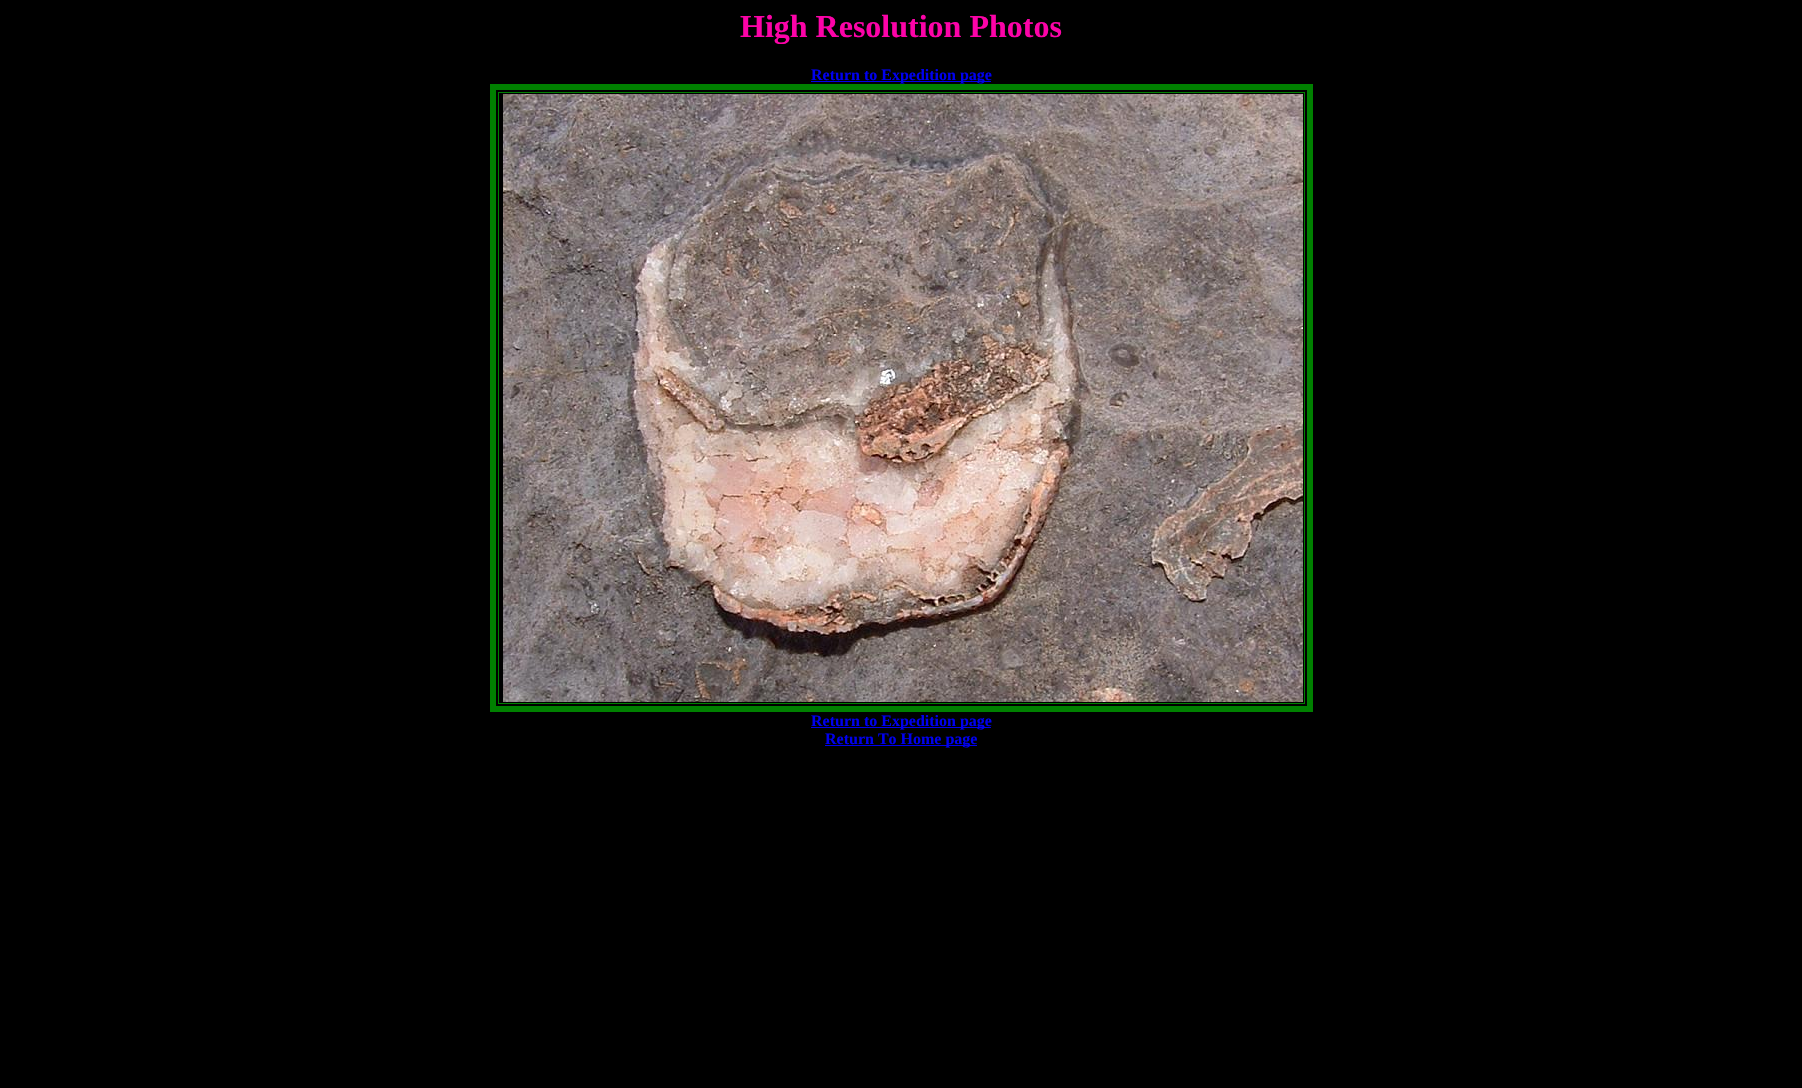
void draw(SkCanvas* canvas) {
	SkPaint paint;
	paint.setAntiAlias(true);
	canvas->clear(0xff000000);
	SkFont f1(fontMgr->matchFamilyStyle("Liberation Serif", SkFontStyle::Bold()), 32);
	f1.setSubpixel(true);
	paint.setColor(0xfffc03a8);
	canvas->drawString("High Resolution Photos", 740, 37, f1, paint);
	paint.setColor(0xff0000ee);
	canvas->drawRect(SkRect::MakeXYWH(811, 81, 180, 1), paint);
	SkFont f2(fontMgr->matchFamilyStyle("Liberation Serif", SkFontStyle::Bold()), 16);
	f2.setSubpixel(true);
	canvas->drawString("Return to Expedition page", 811, 80, f2, paint);
	paint.setStroke(true);
	paint.setStrokeWidth(6);
	paint.setColor(0xff008000);
	canvas->drawRect(SkRect::MakeXYWH(493, 87, 817, 622), paint);
	paint.setStrokeWidth(1);
	canvas->drawRect(SkRect::MakeXYWH(498.5, 92.5, 806, 611), paint);
	canvas->drawImageRect(SkImages::DeferredFromEncodedData(SkData::MakeFromFileName("img1.png")), SkRect::MakeXYWH(503, 94, 800, 608), SkSamplingOptions());
	paint.setStroke(false);
	paint.setColor(0xff0000ee);
	canvas->drawRect(SkRect::MakeXYWH(811, 727, 180, 1), paint);
	canvas->drawString("Return to Expedition page", 811, 726, f2, paint);
	canvas->drawRect(SkRect::MakeXYWH(825, 745, 152, 1), paint);
	canvas->drawString("Return To Home page", 825, 744, f2, paint);
}
